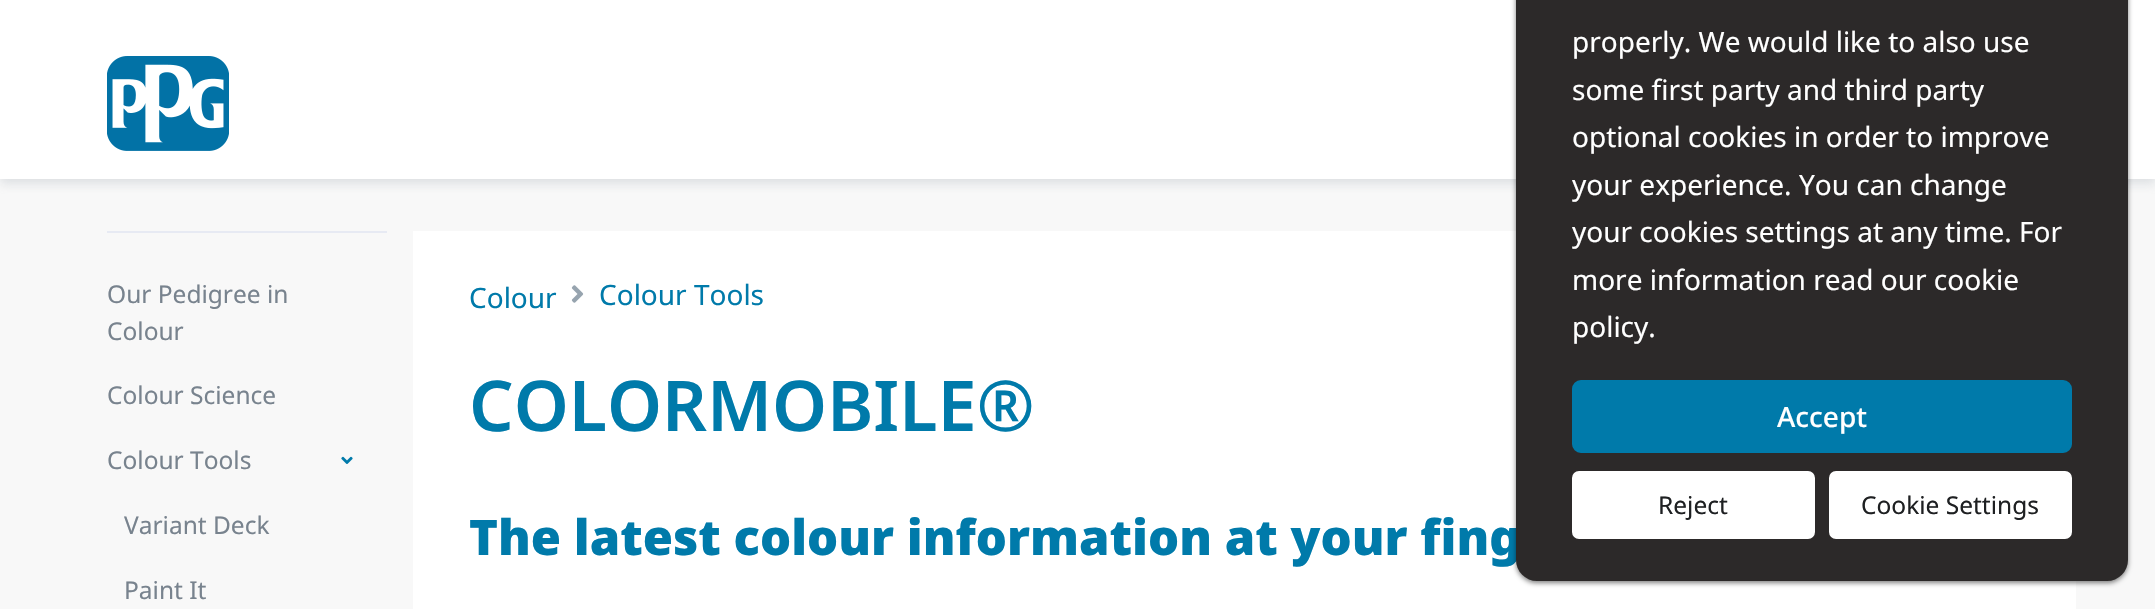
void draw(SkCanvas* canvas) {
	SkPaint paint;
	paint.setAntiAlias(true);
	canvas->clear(0xfff8f8f8);
	paint.setColor(0x408c98a4);
	paint.setMaskFilter(SkMaskFilter::MakeBlur(kNormal_SkBlurStyle, 5));
	canvas->drawRect(SkRect::MakeXYWH(0, 5, 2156, 179), paint);
	paint.setMaskFilter(nullptr);
	paint.setColor(0xffffffff);
	canvas->drawRect(SkRect::MakeXYWH(0, 0, 2155, 179), paint);
	canvas->drawImageRect(SkImages::DeferredFromEncodedData(SkData::MakeFromFileName("img1.png")), SkRect::MakeXYWH(107, 56, 122, 95), SkSamplingOptions());
	paint.setColor(0xffe7eaf3);
	canvas->drawRect(SkRect::MakeXYWH(107, 231, 280, 2), paint);
	SkFont f1(fontMgr->matchFamilyStyle("Noto Sans", SkFontStyle::Normal()), 24.5);
	f1.setSubpixel(true);
	paint.setColor(0xff78838e);
	canvas->drawString("Our Pedigree in", 107, 303, f1, paint);
	canvas->drawString("Colour", 107, 340, f1, paint);
	canvas->drawString("Colour Science", 107, 404, f1, paint);
	canvas->drawString("Colour Tools", 107, 469, f1, paint);
	canvas->drawImageRect(SkImages::DeferredFromEncodedData(SkData::MakeFromFileName("img2.png")), SkRect::MakeXYWH(341, 456, 12, 8), SkSamplingOptions());
	canvas->drawString("Variant Deck", 124, 534, f1, paint);
	canvas->drawString("Paint It", 124, 599, f1, paint);
	paint.setColor(0xffffffff);
	canvas->drawRect(SkRect::MakeXYWH(413, 231, 1663, 378), paint);
	SkFont f2(fontMgr->matchFamilyStyle("Noto Sans", SkFontStyle::Normal()), 28);
	f2.setSubpixel(true);
	paint.setColor(0xff007aaa);
	canvas->drawString("Colour", 469, 308, f2, paint);
	canvas->drawImageRect(SkImages::DeferredFromEncodedData(SkData::MakeFromFileName("img3.png")), SkRect::MakeXYWH(571, 285, 13, 18), SkSamplingOptions());
	canvas->drawString("Colour Tools", 599, 305, f2, paint);
	SkFont f3(fontMgr->matchFamilyStyle("Noto Sans", SkFontStyle(600, SkFontStyle::kNormal_Width, SkFontStyle::kUpright_Slant)), 70);
	f3.setSubpixel(true);
	canvas->drawString("COLORMOBILE®", 469, 431, f3, paint);
	SkFont f4(fontMgr->matchFamilyStyle("Noto Sans", SkFontStyle(900, SkFontStyle::kNormal_Width, SkFontStyle::kUpright_Slant)), 49);
	f4.setSubpixel(true);
	canvas->drawString("The latest colour information at your fing", 469, 555, f4, paint);
	paint.setColor(0x80000000);
	paint.setMaskFilter(SkMaskFilter::MakeBlur(kNormal_SkBlurStyle, 2.5));
	canvas->drawRoundRect(SkRect::MakeXYWH(1516, -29, 612, 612), 21, 21, paint);
	paint.setMaskFilter(nullptr);
	paint.setColor(0xff2c2929);
	canvas->drawRoundRect(SkRect::MakeXYWH(1516, -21, 612, 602), 21, 21, paint);
	paint.setColor(0xffffffff);
	canvas->drawString("properly. We would like to also use", 1572, 52, f2, paint);
	canvas->drawString("some first party and third party", 1572, 100, f2, paint);
	canvas->drawString("optional cookies in order to improve", 1572, 147, f2, paint);
	canvas->drawString("your experience. You can change", 1572, 195, f2, paint);
	canvas->drawString("your cookies settings at any time. For", 1572, 242, f2, paint);
	canvas->drawString("more information read our cookie", 1572, 290, f2, paint);
	canvas->drawString("policy.", 1572, 337, f2, paint);
	paint.setColor(0xff007aaa);
	canvas->drawRoundRect(SkRect::MakeXYWH(1573, 381, 498, 71), 8, 8, paint);
	paint.setStroke(true);
	paint.setStrokeWidth(2);
	canvas->drawRoundRect(SkRect::MakeXYWH(1573, 381, 498, 71), 8, 8, paint);
	SkFont f5(fontMgr->matchFamilyStyle("Noto Sans", SkFontStyle(500, SkFontStyle::kNormal_Width, SkFontStyle::kUpright_Slant)), 28);
	f5.setSubpixel(true);
	paint.setStroke(false);
	paint.setColor(0xffffffff);
	canvas->drawString("Accept", 1777, 427, f5, paint);
	canvas->drawRoundRect(SkRect::MakeXYWH(1573, 472, 241, 66), 6, 6, paint);
	paint.setStroke(true);
	canvas->drawRoundRect(SkRect::MakeXYWH(1573, 472, 241, 66), 6, 6, paint);
	paint.setStroke(false);
	paint.setColor(0xff1e2022);
	canvas->drawString("Reject", 1658, 514, f1, paint);
	paint.setColor(0xffffffff);
	canvas->drawRoundRect(SkRect::MakeXYWH(1830, 472, 241, 66), 6, 6, paint);
	paint.setStroke(true);
	canvas->drawRoundRect(SkRect::MakeXYWH(1830, 472, 241, 66), 6, 6, paint);
	paint.setStroke(false);
	paint.setColor(0xff1e2022);
	canvas->drawString("Cookie Settings", 1861, 514, f1, paint);
}
